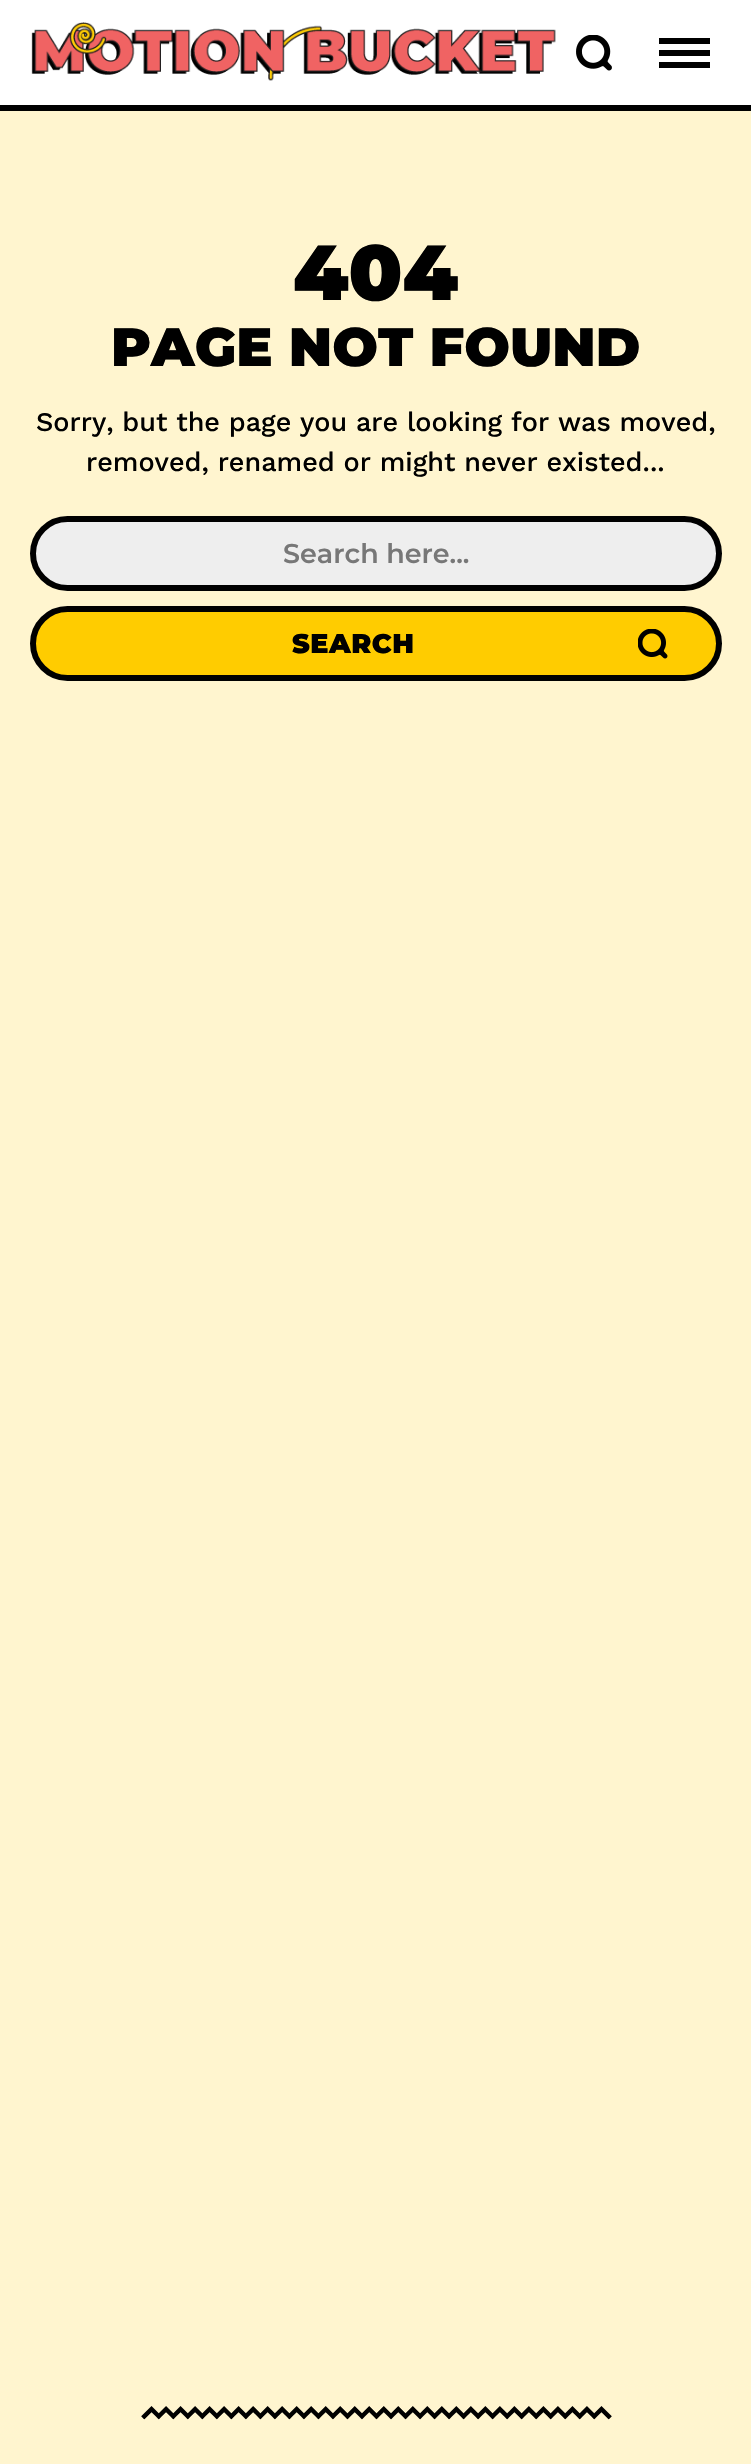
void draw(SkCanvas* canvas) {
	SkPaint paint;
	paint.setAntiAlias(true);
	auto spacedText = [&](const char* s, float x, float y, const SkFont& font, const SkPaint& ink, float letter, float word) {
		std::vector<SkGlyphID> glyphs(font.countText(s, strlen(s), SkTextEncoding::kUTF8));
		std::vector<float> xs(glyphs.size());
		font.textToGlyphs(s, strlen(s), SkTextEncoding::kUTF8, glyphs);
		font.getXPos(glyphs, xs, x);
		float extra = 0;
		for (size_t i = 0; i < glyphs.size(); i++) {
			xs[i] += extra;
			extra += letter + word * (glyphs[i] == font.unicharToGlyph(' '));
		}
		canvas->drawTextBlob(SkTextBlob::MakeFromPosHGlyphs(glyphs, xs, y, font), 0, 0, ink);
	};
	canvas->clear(0xfffff5cf);
	paint.setColor(0xffffffff);
	canvas->drawRect(SkRect::MakeXYWH(0, 0, 751, 105), paint);
	paint.setColor(0xff000000);
	canvas->drawRect(SkRect::MakeXYWH(0, 105, 751, 6), paint);
	canvas->drawImageRect(SkImages::DeferredFromEncodedData(SkData::MakeFromFileName("img1.png")), SkRect::MakeXYWH(31, 22, 525, 59), SkSamplingOptions());
	canvas->drawImageRect(SkImages::DeferredFromEncodedData(SkData::MakeFromFileName("img2.png")), SkRect::MakeXYWH(576, 35, 36, 36), SkSamplingOptions());
	canvas->drawRect(SkRect::MakeXYWH(659, 50, 51, 6), paint);
	canvas->drawRect(SkRect::MakeXYWH(659, 38, 51, 6), paint);
	canvas->drawRect(SkRect::MakeXYWH(659, 62, 51, 6), paint);
	SkFont f1(fontMgr->matchFamilyStyle("Montserrat", SkFontStyle(900, SkFontStyle::kNormal_Width, SkFontStyle::kUpright_Slant)), 78);
	f1.setSubpixel(true);
	canvas->drawString("404", 293, 300, f1, paint);
	SkFont f2(fontMgr->matchFamilyStyle("Montserrat", SkFontStyle(900, SkFontStyle::kNormal_Width, SkFontStyle::kUpright_Slant)), 54);
	f2.setSubpixel(true);
	canvas->drawString("PAGE NOT FOUND", 111, 366, f2, paint);
	SkFont f3(fontMgr->matchFamilyStyle("Work Sans", SkFontStyle(500, SkFontStyle::kNormal_Width, SkFontStyle::kUpright_Slant)), 27);
	f3.setSubpixel(true);
	canvas->drawString("Sorry, but the page you are looking for was moved,", 36, 431, f3, paint);
	canvas->drawString("removed, renamed or might never existed...", 86, 471, f3, paint);
	paint.setColor(0xffeeeeee);
	canvas->drawRoundRect(SkRect::MakeXYWH(33, 519, 686, 69), 34.5, 34.5, paint);
	paint.setStroke(true);
	paint.setStrokeWidth(6);
	paint.setColor(0xff000000);
	canvas->drawRoundRect(SkRect::MakeXYWH(33, 519, 686, 69), 34.5, 34.5, paint);
	SkFont f4(fontMgr->matchFamilyStyle("Montserrat", SkFontStyle(600, SkFontStyle::kNormal_Width, SkFontStyle::kUpright_Slant)), 27);
	f4.setSubpixel(true);
	paint.setStroke(false);
	paint.setColor(0xff777777);
	canvas->drawString("Search here...", 283, 563, f4, paint);
	paint.setColor(0xffffcc00);
	canvas->drawRoundRect(SkRect::MakeXYWH(33, 609, 686, 69), 34.5, 34.5, paint);
	paint.setStroke(true);
	paint.setColor(0xff000000);
	canvas->drawRoundRect(SkRect::MakeXYWH(33, 609, 686, 69), 34.5, 34.5, paint);
	SkFont f5(fontMgr->matchFamilyStyle("Montserrat", SkFontStyle(900, SkFontStyle::kNormal_Width, SkFontStyle::kUpright_Slant)), 27);
	f5.setSubpixel(true);
	paint.setStroke(false);
	spacedText("SEARCH", 292, 653, f5, paint, 0.5, 0);
	canvas->drawImageRect(SkImages::DeferredFromEncodedData(SkData::MakeFromFileName("img3.png")), SkRect::MakeXYWH(638, 629, 30, 30), SkSamplingOptions());
	canvas->drawImageRect(SkImages::DeferredFromEncodedData(SkData::MakeFromFileName("img4.png")), SkRect::MakeXYWH(141, 2406, 471, 14), SkSamplingOptions());
}
